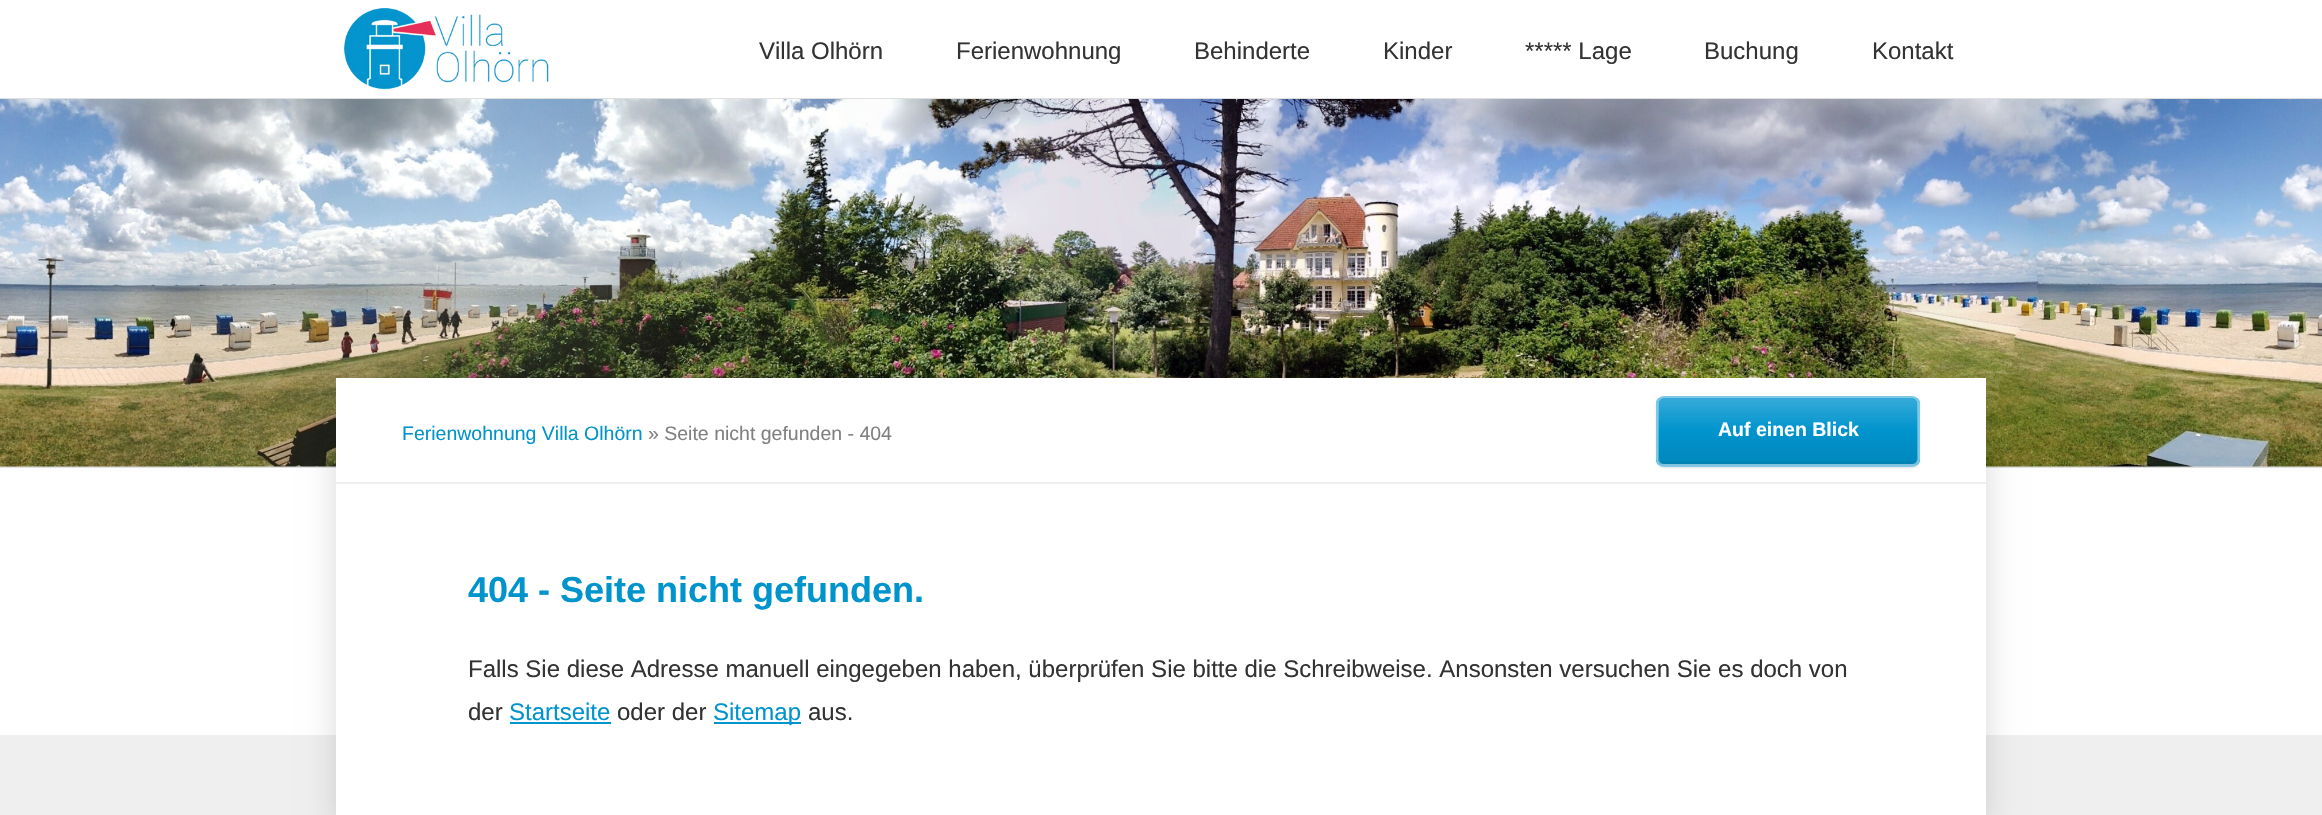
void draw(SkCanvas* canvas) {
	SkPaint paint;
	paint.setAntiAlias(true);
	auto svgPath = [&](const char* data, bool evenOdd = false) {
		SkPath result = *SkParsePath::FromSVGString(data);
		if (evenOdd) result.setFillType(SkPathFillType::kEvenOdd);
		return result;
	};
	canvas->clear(0xffffffff);
	canvas->drawImageRect(SkImages::DeferredFromEncodedData(SkData::MakeFromFileName("img1.png")), SkRect::MakeXYWH(344, 8, 205, 82), SkSamplingOptions());
	SkFont f1(fontMgr->matchFamilyStyle("Liberation Sans", SkFontStyle::Normal()), 24);
	f1.setSubpixel(true);
	paint.setColor(0xff333333);
	canvas->drawString("Villa Olhörn", 759, 59, f1, paint);
	canvas->drawString("Ferienwohnung", 956, 59, f1, paint);
	canvas->drawString("Behinderte", 1194, 59, f1, paint);
	canvas->drawString("Kinder", 1383, 59, f1, paint);
	canvas->drawString("***** Lage", 1525, 59, f1, paint);
	canvas->drawString("Buchung", 1704, 59, f1, paint);
	canvas->drawString("Kontakt", 1872, 59, f1, paint);
	paint.setStroke(true);
	paint.setStrokeWidth(2);
	paint.setColor(0xffdfdfdf);
	canvas->drawRect(SkRect::MakeXYWH(-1, 99, 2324, 368), paint);
	canvas->drawImageRect(SkImages::DeferredFromEncodedData(SkData::MakeFromFileName("img2.png")), SkRect::MakeXYWH(0, 99, 2322, 368), SkSamplingOptions());
	paint.setStroke(false);
	paint.setColor(0xffefefef);
	canvas->drawRect(SkRect::MakeXYWH(0, 735, 2322, 80), paint);
	paint.setColor(0x26000000);
	paint.setMaskFilter(SkMaskFilter::MakeBlur(kNormal_SkBlurStyle, 15));
	canvas->drawRect(SkRect::MakeXYWH(336, 378, 1650, 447), paint);
	paint.setMaskFilter(nullptr);
	paint.setColor(0xffffffff);
	canvas->drawRect(SkRect::MakeXYWH(336, 378, 1650, 437), paint);
	paint.setColor(0xffefefef);
	canvas->drawRect(SkRect::MakeXYWH(336, 482, 1650, 2), paint);
	SkFont f2(fontMgr->matchFamilyStyle("Liberation Sans", SkFontStyle::Normal()), 19.5);
	f2.setSubpixel(true);
	paint.setColor(0xff0094cd);
	canvas->drawString("Ferienwohnung Villa Olhörn", 402, 440, f2, paint);
	paint.setColor(0xff808080);
	canvas->drawString("» Seite nicht gefunden - 404", 648, 440, f2, paint);
	paint.setColor(0x1a000000);
	paint.setMaskFilter(SkMaskFilter::MakeBlur(kNormal_SkBlurStyle, 1));
	canvas->drawRoundRect(SkRect::MakeXYWH(1656, 398, 264, 70), 8, 8, paint);
	paint.setMaskFilter(nullptr);
	canvas->save();
	canvas->clipPath(svgPath("M1664 396H1912C1916.5 396 1920 399.5 1920 404V459C1920 463.5 1916.5 467 1912 467H1664C1659.5 467 1656 463.5 1656 459V404C1656 399.5 1659.5 396 1664 396Z"), true);
	{
		const SkColor colors[] = {0xff38abd8, 0xff0094cd, 0xff0088bc};
		const float stops[] = {0, 0.5, 1};
		const SkPoint ends[] = {{1788, 397}, {1788, 464}};
		paint.setShader(SkGradientShader::MakeLinear(ends, colors, stops, 3, SkTileMode::kClamp));
		paint.setAlpha(255);
	}
	canvas->drawRect(SkRect::MakeXYWH(1656, 398, 264, 67), paint);
	canvas->restore();
	paint.setShader(nullptr);
	paint.setColor(0x0d000000);
	canvas->drawPath(svgPath("M1658 455V459C1658 462 1661 465 1664 465H1913C1916 465 1919 462 1919 459V404C1919 403 1919 402 1918 401V455C1918 459 1916 461 1912 461H1664C1660 461 1658 459 1658 455Z"), paint);
	paint.setColor(0x4dffffff);
	canvas->drawPath(svgPath("M1660 464C1661 465 1663 465 1664 465H1913C1916 465 1919 462 1919 459V404C1919 401 1917 399 1914 398C1916 399 1917 401 1917 403V458C1917 462 1914 464 1911 464Z"), paint);
	canvas->drawPath(svgPath("M1661 399C1659 400 1658 402 1658 404V459C1658 462 1661 465 1664 465H1913C1915 465 1916 464 1917 463C1916 464 1915 464 1914 464H1665C1662 464 1659 462 1659 458V403C1659 402 1660 400 1661 399Z"), paint);
	paint.setStroke(true);
	paint.setColor(0xff7fc9e6);
	canvas->drawRoundRect(SkRect::MakeXYWH(1657, 397, 262, 69), 7, 7, paint);
	SkFont f3(fontMgr->matchFamilyStyle("Liberation Sans", SkFontStyle::Bold()), 19.5);
	f3.setSubpixel(true);
	paint.setStroke(false);
	paint.setColor(0xffffffff);
	canvas->drawString("Auf einen Blick", 1718, 436, f3, paint);
	SkFont f4(fontMgr->matchFamilyStyle("Liberation Sans", SkFontStyle::Bold()), 36);
	f4.setSubpixel(true);
	paint.setColor(0xff0094cd);
	canvas->drawString("404 - Seite nicht gefunden.", 468, 602, f4, paint);
	paint.setColor(0xff333333);
	canvas->drawString("Falls Sie diese Adresse manuell eingegeben haben, überprüfen Sie bitte die Schreibweise. Ansonsten versuchen Sie es doch von", 468, 677, f1, paint);
	canvas->drawString("der", 468, 720, f1, paint);
	paint.setColor(0xff0094cd);
	canvas->drawString("Startseite", 509, 720, f1, paint);
	canvas->drawRect(SkRect::MakeXYWH(510, 722, 101, 2), paint);
	paint.setColor(0xff333333);
	canvas->drawString("oder der", 617, 720, f1, paint);
	paint.setColor(0xff0094cd);
	canvas->drawRect(SkRect::MakeXYWH(714, 722, 87, 2), paint);
	canvas->drawString("Sitemap", 713, 720, f1, paint);
	paint.setColor(0xff333333);
	canvas->drawString("aus.", 808, 720, f1, paint);
}
